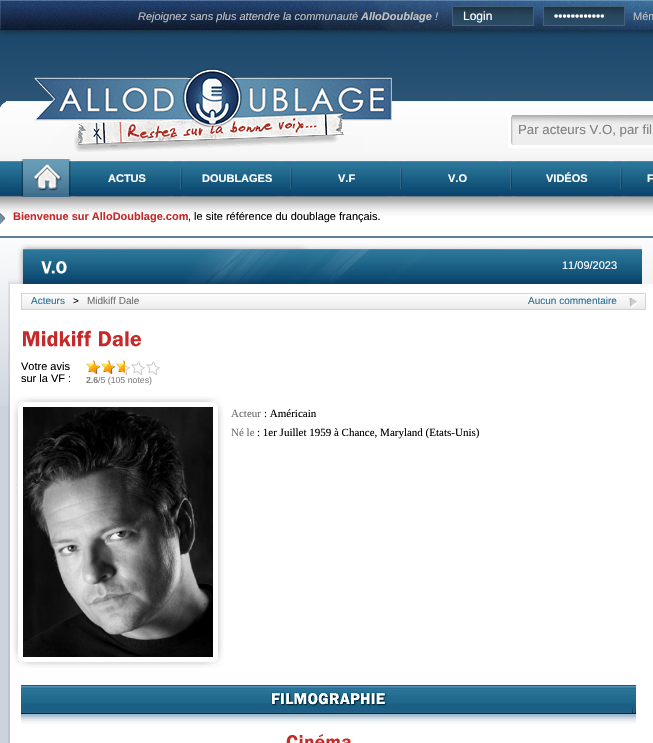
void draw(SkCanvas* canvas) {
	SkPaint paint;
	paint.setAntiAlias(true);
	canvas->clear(0xffffffff);
	canvas->drawImageRect(SkImages::DeferredFromEncodedData(SkData::MakeFromFileName("img1.png")), SkRect::MakeXYWH(0, 0, 653, 238), SkSamplingOptions());
	SkFont f1(fontMgr->matchFamilyStyle("Liberation Sans", SkFontStyle::Italic()), 11);
	f1.setSubpixel(true);
	paint.setColor(0xffc0c0c0);
	canvas->drawString("Rejoignez sans plus attendre la communauté", 138, 20, f1, paint);
	SkFont f2(fontMgr->matchFamilyStyle("Liberation Sans", SkFontStyle::BoldItalic()), 11);
	f2.setSubpixel(true);
	canvas->drawString("AlloDoublage", 361, 20, f2, paint);
	canvas->drawString("!", 435, 20, f1, paint);
	canvas->drawImageRect(SkImages::DeferredFromEncodedData(SkData::MakeFromFileName("img2.png")), SkRect::MakeXYWH(453, 7, 80, 18), SkSamplingOptions());
	paint.setStroke(true);
	paint.setStrokeWidth(1);
	paint.setColor(0xff43627a);
	canvas->drawRect(SkRect::MakeXYWH(452.5, 6.5, 81, 19), paint);
	SkFont f3(fontMgr->matchFamilyStyle("Liberation Sans", SkFontStyle::Normal()), 12);
	f3.setSubpixel(true);
	paint.setStroke(false);
	paint.setColor(0xffffffff);
	canvas->drawString("Login", 463, 20, f3, paint);
	canvas->drawImageRect(SkImages::DeferredFromEncodedData(SkData::MakeFromFileName("img2.png")), SkRect::MakeXYWH(544, 7, 80, 18), SkSamplingOptions());
	paint.setStroke(true);
	paint.setColor(0xff43627a);
	canvas->drawRect(SkRect::MakeXYWH(543.5, 6.5, 81, 19), paint);
	paint.setStroke(false);
	paint.setColor(0xffffffff);
	canvas->drawString("••••••••••••", 554, 20, f3, paint);
	SkFont f4(fontMgr->matchFamilyStyle("Liberation Sans", SkFontStyle::Normal()), 11);
	f4.setSubpixel(true);
	paint.setColor(0xffc0c0c0);
	canvas->drawString("Mém", 633, 20, f4, paint);
	canvas->drawImageRect(SkImages::DeferredFromEncodedData(SkData::MakeFromFileName("img3.png")), SkRect::MakeXYWH(0, 101, 653, 60), SkSamplingOptions());
	canvas->drawImageRect(SkImages::DeferredFromEncodedData(SkData::MakeFromFileName("img4.png")), SkRect::MakeXYWH(34, 67, 358, 85), SkSamplingOptions());
	canvas->drawImageRect(SkImages::DeferredFromEncodedData(SkData::MakeFromFileName("img5.png")), SkRect::MakeXYWH(508, 115, 145, 33), SkSamplingOptions());
	SkFont f5(fontMgr->matchFamilyStyle("Liberation Sans", SkFontStyle::Normal()), 13.25);
	f5.setSubpixel(true);
	paint.setColor(0xff808080);
	canvas->drawString("Par acteurs V.O, par fil", 518, 134, f5, paint);
	canvas->drawImageRect(SkImages::DeferredFromEncodedData(SkData::MakeFromFileName("img6.png")), SkRect::MakeXYWH(0, 161, 21, 36), SkSamplingOptions());
	canvas->drawImageRect(SkImages::DeferredFromEncodedData(SkData::MakeFromFileName("img7.png")), SkRect::MakeXYWH(21, 159, 51, 38), SkSamplingOptions());
	canvas->drawImageRect(SkImages::DeferredFromEncodedData(SkData::MakeFromFileName("img8.png")), SkRect::MakeXYWH(72, 161, 110, 36), SkSamplingOptions());
	SkFont f6(fontMgr->matchFamilyStyle("Liberation Sans", SkFontStyle::Bold()), 11);
	f6.setSubpixel(true);
	paint.setColor(0xffffffff);
	canvas->drawString("ACTUS", 108, 182, f6, paint);
	canvas->drawImageRect(SkImages::DeferredFromEncodedData(SkData::MakeFromFileName("img8.png")), SkRect::MakeXYWH(182, 161, 110, 36), SkSamplingOptions());
	canvas->drawString("DOUBLAGES", 202, 182, f6, paint);
	canvas->drawImageRect(SkImages::DeferredFromEncodedData(SkData::MakeFromFileName("img8.png")), SkRect::MakeXYWH(292, 161, 110, 36), SkSamplingOptions());
	canvas->drawString("V.F", 338, 182, f6, paint);
	canvas->drawImageRect(SkImages::DeferredFromEncodedData(SkData::MakeFromFileName("img8.png")), SkRect::MakeXYWH(402, 161, 110, 36), SkSamplingOptions());
	canvas->drawString("V.O", 448, 182, f6, paint);
	canvas->drawImageRect(SkImages::DeferredFromEncodedData(SkData::MakeFromFileName("img8.png")), SkRect::MakeXYWH(512, 161, 110, 36), SkSamplingOptions());
	canvas->drawString("VIDÉOS", 546, 182, f6, paint);
	canvas->drawImageRect(SkImages::DeferredFromEncodedData(SkData::MakeFromFileName("img9.png")), SkRect::MakeXYWH(622, 161, 31, 36), SkSamplingOptions());
	canvas->drawString("F", 647, 182, f6, paint);
	canvas->drawImageRect(SkImages::DeferredFromEncodedData(SkData::MakeFromFileName("img10.png")), SkRect::MakeXYWH(0, 197, 5, 39), SkSamplingOptions());
	canvas->drawImageRect(SkImages::DeferredFromEncodedData(SkData::MakeFromFileName("img11.png")), SkRect::MakeXYWH(5, 197, 648, 39), SkSamplingOptions());
	paint.setColor(0xffc52929);
	canvas->drawString("Bienvenue sur AlloDoublage.com", 13, 220, f6, paint);
	paint.setColor(0xff000000);
	canvas->drawString(", le site référence du doublage français.", 188, 220, f4, paint);
	paint.setColor(0xffccd3de);
	canvas->drawRect(SkRect::MakeXYWH(0, 406, 10, 337), paint);
	canvas->drawImageRect(SkImages::DeferredFromEncodedData(SkData::MakeFromFileName("img12.png")), SkRect::MakeXYWH(0, 238, 653, 168), SkSamplingOptions());
	canvas->drawImageRect(SkImages::DeferredFromEncodedData(SkData::MakeFromFileName("img13.png")), SkRect::MakeXYWH(8, 244, 634, 40), SkSamplingOptions());
	canvas->drawImageRect(SkImages::DeferredFromEncodedData(SkData::MakeFromFileName("img14.png")), SkRect::MakeXYWH(41, 261, 26, 13), SkSamplingOptions());
	paint.setColor(0xffffffff);
	canvas->drawString("11/09/2023", 562, 269, f4, paint);
	canvas->drawImageRect(SkImages::DeferredFromEncodedData(SkData::MakeFromFileName("img15.png")), SkRect::MakeXYWH(8, 284, 645, 459), SkSamplingOptions());
	canvas->drawImageRect(SkImages::DeferredFromEncodedData(SkData::MakeFromFileName("img16.png")), SkRect::MakeXYWH(21, 293, 625, 17), SkSamplingOptions());
	SkFont f7(fontMgr->matchFamilyStyle("Liberation Sans", SkFontStyle::Normal()), 10);
	f7.setSubpixel(true);
	paint.setColor(0xff287195);
	canvas->drawString("Acteurs", 31, 304, f7, paint);
	paint.setColor(0xff000000);
	canvas->drawString(">", 73, 304, f7, paint);
	paint.setColor(0xff707070);
	canvas->drawString("Midkiff Dale", 87, 304, f7, paint);
	paint.setColor(0xff287195);
	canvas->drawString("Aucun commentaire", 528, 304, f7, paint);
	canvas->drawImageRect(SkImages::DeferredFromEncodedData(SkData::MakeFromFileName("img17.png")), SkRect::MakeXYWH(23, 330, 68, 17), SkSamplingOptions());
	canvas->drawImageRect(SkImages::DeferredFromEncodedData(SkData::MakeFromFileName("img18.png")), SkRect::MakeXYWH(99, 331, 42, 16), SkSamplingOptions());
	paint.setColor(0xff000000);
	canvas->drawString("Votre avis", 21, 370, f4, paint);
	canvas->drawString("sur la VF :", 21, 382, f4, paint);
	canvas->drawImageRect(SkImages::DeferredFromEncodedData(SkData::MakeFromFileName("img19.png")), SkRect::MakeXYWH(125, 361, 35, 14), SkSamplingOptions());
	canvas->drawImageRect(SkImages::DeferredFromEncodedData(SkData::MakeFromFileName("img20.png")), SkRect::MakeXYWH(86, 360, 39, 15), SkSamplingOptions());
	SkFont f8(fontMgr->matchFamilyStyle("Liberation Sans", SkFontStyle::Bold()), 8.75);
	f8.setSubpixel(true);
	paint.setColor(0xff808080);
	canvas->drawString("2.6", 86, 383, f8, paint);
	SkFont f9(fontMgr->matchFamilyStyle("Liberation Sans", SkFontStyle::Normal()), 8.75);
	f9.setSubpixel(true);
	canvas->drawString("/5 (105 notes)", 98, 383, f9, paint);
	canvas->drawImageRect(SkImages::DeferredFromEncodedData(SkData::MakeFromFileName("img21.png")), SkRect::MakeXYWH(12, 396, 212, 272), SkSamplingOptions());
	canvas->drawImageRect(SkImages::DeferredFromEncodedData(SkData::MakeFromFileName("img22.png")), SkRect::MakeXYWH(23, 407, 190, 250), SkSamplingOptions());
	SkFont f10(fontMgr->matchFamilyStyle("Liberation Serif", SkFontStyle::Normal()), 11);
	f10.setSubpixel(true);
	paint.setColor(0xff707070);
	canvas->drawString("Acteur", 231, 417, f10, paint);
	paint.setColor(0xff000000);
	canvas->drawString(": Américain", 264, 417, f10, paint);
	paint.setColor(0xff707070);
	canvas->drawString("Né le", 231, 436, f10, paint);
	paint.setColor(0xff000000);
	canvas->drawString(": 1er Juillet 1959 à Chance, Maryland (Etats-Unis)", 257, 436, f10, paint);
	canvas->drawImageRect(SkImages::DeferredFromEncodedData(SkData::MakeFromFileName("img23.png")), SkRect::MakeXYWH(21, 685, 615, 39), SkSamplingOptions());
	canvas->drawImageRect(SkImages::DeferredFromEncodedData(SkData::MakeFromFileName("img24.png")), SkRect::MakeXYWH(286, 727, 71, 16), SkSamplingOptions());
}
